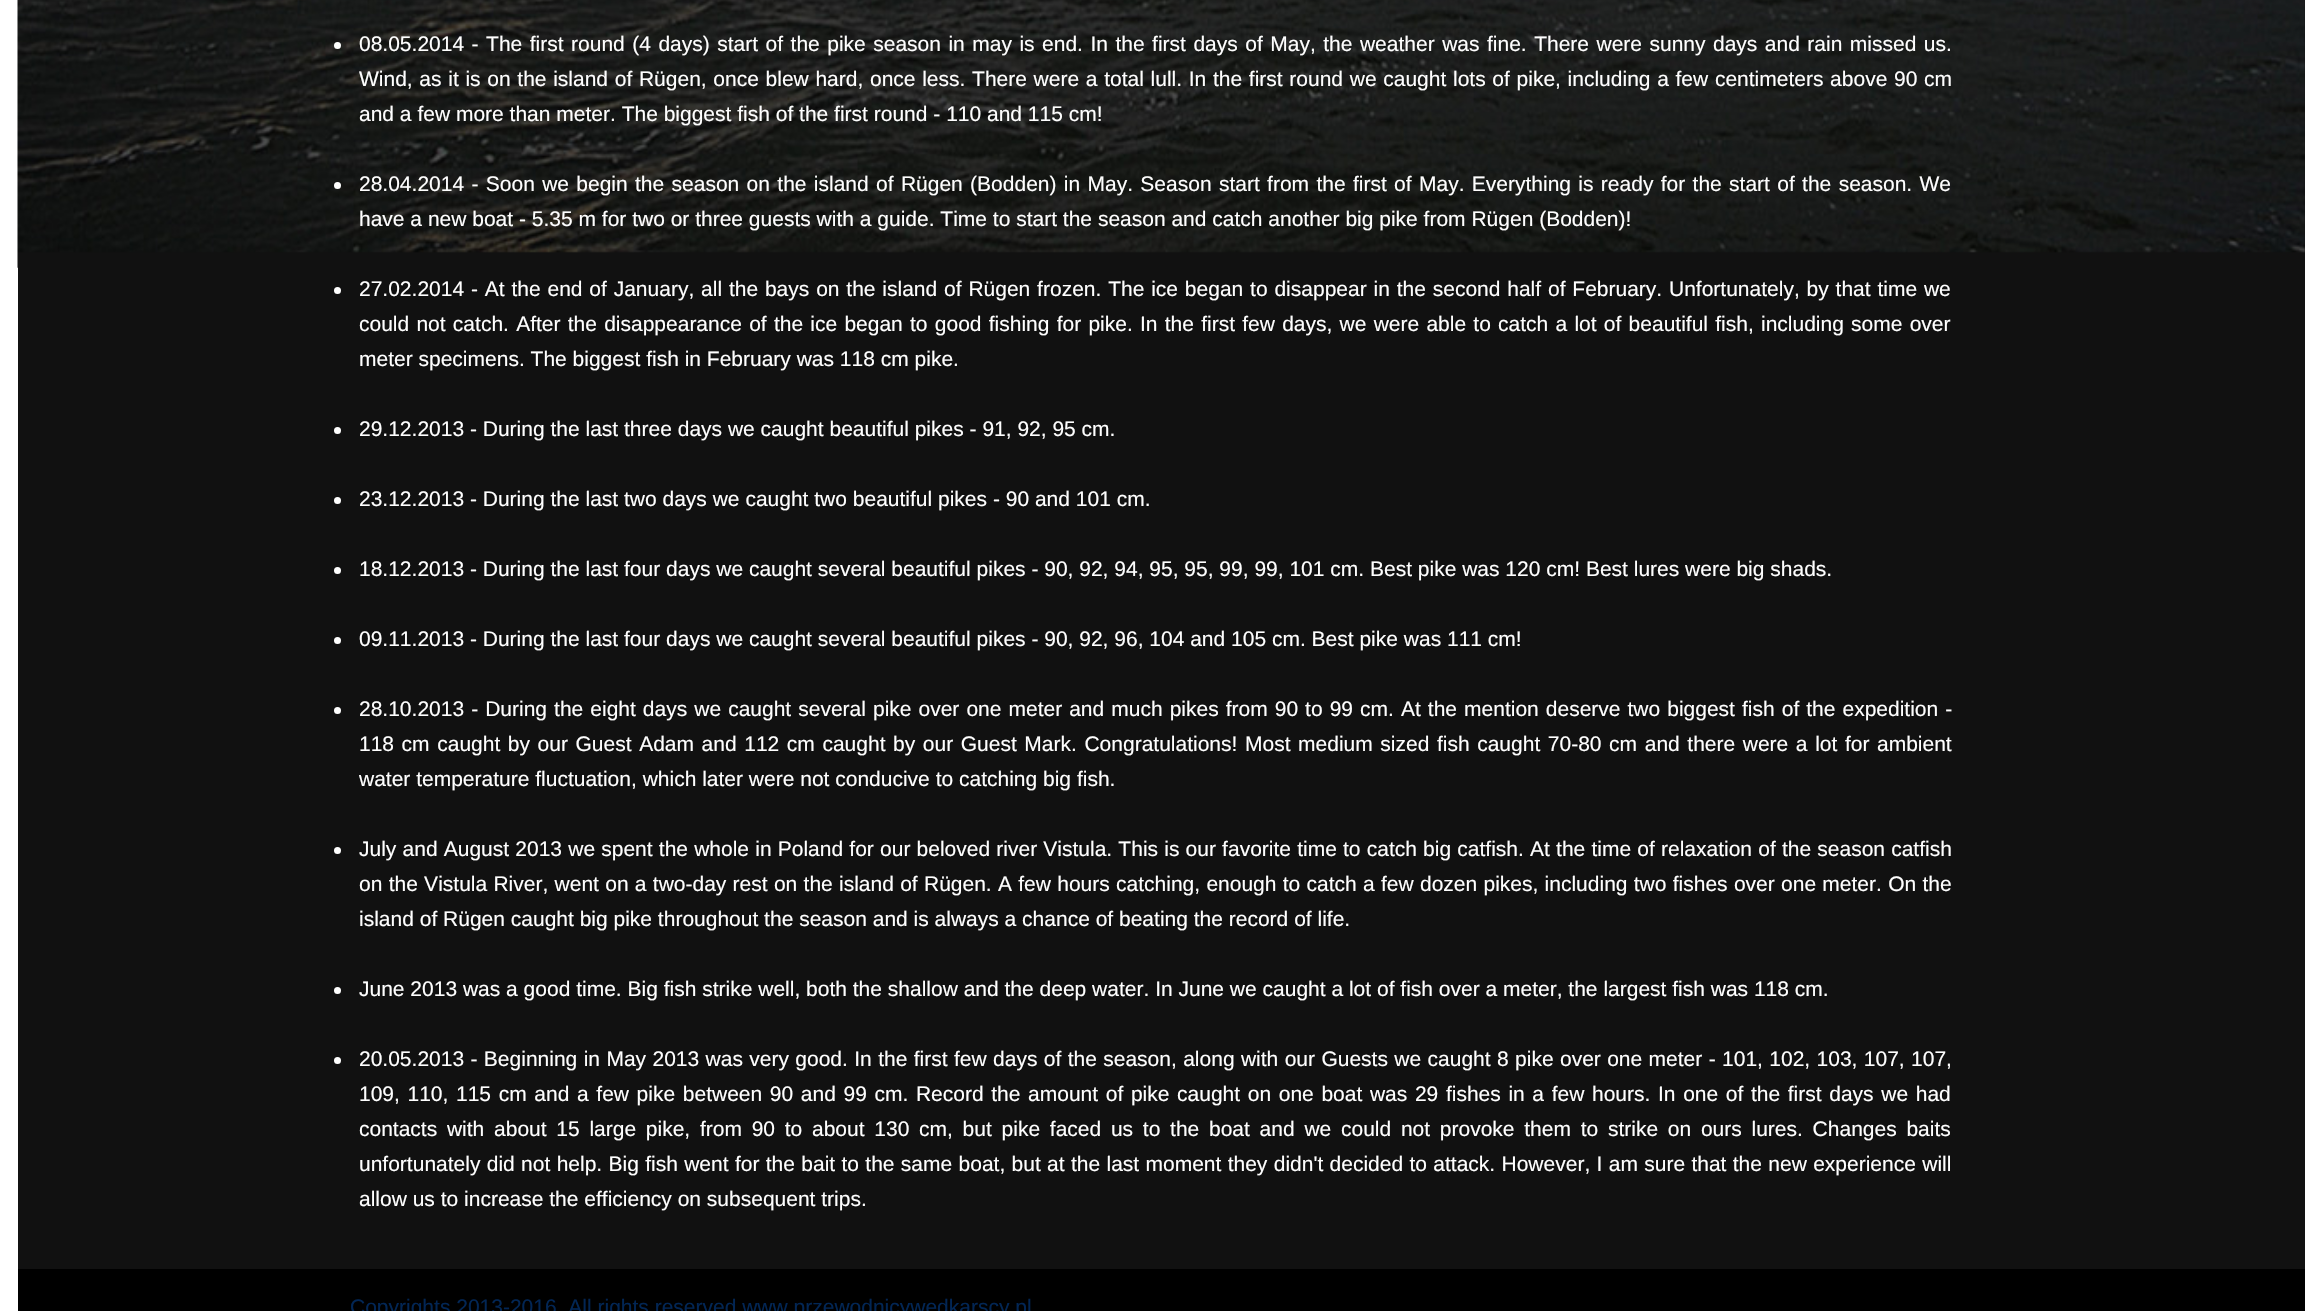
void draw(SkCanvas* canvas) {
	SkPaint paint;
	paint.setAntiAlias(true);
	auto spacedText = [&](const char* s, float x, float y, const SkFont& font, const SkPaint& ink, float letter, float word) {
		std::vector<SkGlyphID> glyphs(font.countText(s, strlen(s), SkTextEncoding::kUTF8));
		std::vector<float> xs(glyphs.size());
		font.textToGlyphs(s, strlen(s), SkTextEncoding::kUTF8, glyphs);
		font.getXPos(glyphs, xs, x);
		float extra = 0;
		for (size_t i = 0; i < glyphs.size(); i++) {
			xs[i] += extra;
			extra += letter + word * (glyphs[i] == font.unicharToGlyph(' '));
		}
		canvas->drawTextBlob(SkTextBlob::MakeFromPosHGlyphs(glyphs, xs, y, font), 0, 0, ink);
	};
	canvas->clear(0xffffffff);
	paint.setColor(0xff111111);
	canvas->drawRect(SkRect::MakeXYWH(18, 0, 2287, 1269), paint);
	canvas->drawImageRect(SkImages::DeferredFromEncodedData(SkData::MakeFromFileName("img1.png")), SkRect::MakeXYWH(17, 0, 2288, 268), SkSamplingOptions());
	paint.setColor(0xffffffff);
	canvas->drawCircle(337.5, 45.5, 3.5, paint);
	SkFont f1(fontMgr->matchFamilyStyle("Liberation Sans", SkFontStyle::Normal()), 21);
	f1.setSubpixel(true);
	spacedText("08.05.2014 - The first round (4 days) start of the pike season in may is end. In the first days of May, the weather was fine. There were sunny days and rain missed us.", 359, 51, f1, paint, 0, 1.65);
	spacedText("Wind, as it is on the island of Rügen, once blew hard, once less. There were a total lull. In the first round we caught lots of pike, including a few centimeters above 90 cm", 359, 86, f1, paint, 0, 0.85);
	canvas->drawString("and a few more than meter. The biggest fish of the first round - 110 and 115 cm!", 359, 121, f1, paint);
	canvas->drawCircle(337.5, 185.5, 3.5, paint);
	spacedText("28.04.2014 - Soon we begin the season on the island of Rügen (Bodden) in May. Season start from the first of May. Everything is ready for the start of the season. We", 359, 191, f1, paint, 0, 1.5);
	canvas->drawString("have a new boat - 5.35 m for two or three guests with a guide. Time to start the season and catch another big pike from Rügen (Bodden)!", 359, 226, f1, paint);
	canvas->drawCircle(337.5, 290.5, 3.5, paint);
	spacedText("27.02.2014 - At the end of January, all the bays on the island of Rügen frozen. The ice began to disappear in the second half of February. Unfortunately, by that time we", 359, 296, f1, paint, 0, 1);
	spacedText("could not catch. After the disappearance of the ice began to good fishing for pike. In the first few days, we were able to catch a lot of beautiful fish, including some over", 359, 331, f1, paint, 0, 1.4);
	canvas->drawString("meter specimens. The biggest fish in February was 118 cm pike.", 359, 366, f1, paint);
	canvas->drawCircle(337.5, 430.5, 3.5, paint);
	canvas->drawString("29.12.2013 - During the last three days we caught beautiful pikes - 91, 92, 95 cm.", 359, 436, f1, paint);
	canvas->drawCircle(337.5, 500.5, 3.5, paint);
	canvas->drawString("23.12.2013 - During the last two days we caught two beautiful pikes - 90 and 101 cm.", 359, 506, f1, paint);
	canvas->drawCircle(337.5, 570.5, 3.5, paint);
	canvas->drawString("18.12.2013 - During the last four days we caught several beautiful pikes - 90, 92, 94, 95, 95, 99, 99, 101 cm. Best pike was 120 cm! Best lures were big shads.", 359, 576, f1, paint);
	canvas->drawCircle(337.5, 640.5, 3.5, paint);
	canvas->drawString("09.11.2013 - During the last four days we caught several beautiful pikes - 90, 92, 96, 104 and 105 cm. Best pike was 111 cm!", 359, 646, f1, paint);
	canvas->drawCircle(337.5, 710.5, 3.5, paint);
	spacedText("28.10.2013 - During the eight days we caught several pike over one meter and much pikes from 90 to 99 cm. At the mention deserve two biggest fish of the expedition -", 359, 716, f1, paint, 0, 1.2);
	spacedText("118 cm caught by our Guest Adam and 112 cm caught by our Guest Mark. Congratulations! Most medium sized fish caught 70-80 cm and there were a lot for ambient", 359, 751, f1, paint, 0, 1.75);
	canvas->drawString("water temperature fluctuation, which later were not conducive to catching big fish.", 359, 786, f1, paint);
	canvas->drawCircle(337.5, 850.5, 3.5, paint);
	spacedText("July and August 2013 we spent the whole in Poland for our beloved river Vistula. This is our favorite time to catch big catfish. At the time of relaxation of the season catfish", 359, 856, f1, paint, 0, 0.35);
	spacedText("on the Vistula River, went on a two-day rest on the island of Rügen. A few hours catching, enough to catch a few dozen pikes, including two fishes over one meter. On the", 359, 891, f1, paint, 0, 0.45);
	canvas->drawString("island of Rügen caught big pike throughout the season and is always a chance of beating the record of life.", 359, 926, f1, paint);
	canvas->drawCircle(337.5, 990.5, 3.5, paint);
	canvas->drawString("June 2013 was a good time. Big fish strike well, both the shallow and the deep water. In June we caught a lot of fish over a meter, the largest fish was 118 cm.", 359, 996, f1, paint);
	canvas->drawCircle(337.5, 1060.5, 3.5, paint);
	spacedText("20.05.2013 - Beginning in May 2013 was very good. In the first few days of the season, along with our Guests we caught 8 pike over one meter - 101, 102, 103, 107, 107,", 359, 1066, f1, paint, 0, 0.55);
	spacedText("109, 110, 115 cm and a few pike between 90 and 99 cm. Record the amount of pike caught on one boat was 29 fishes in a few hours. In one of the first days we had", 359, 1101, f1, paint, 0, 1.8);
	spacedText("contacts with about 15 large pike, from 90 to about 130 cm, but pike faced us to the boat and we could not provoke them to strike on ours lures. Changes baits", 359, 1136, f1, paint, 0, 3.9);
	spacedText("unfortunately did not help. Big fish went for the bait to the same boat, but at the last moment they didn't decided to attack. However, I am sure that the new experience will", 359, 1171, f1, paint, 0, 0.5);
	canvas->drawString("allow us to increase the efficiency on subsequent trips.", 359, 1206, f1, paint);
	paint.setColor(0xff000000);
	canvas->drawRect(SkRect::MakeXYWH(18, 1269, 2287, 42), paint);
	paint.setColor(0xff022655);
	canvas->drawString("Copyrights 2013-2016. All rights reserved www.przewodnicywedkarscy.pl", 350, 1314, f1, paint);
}
